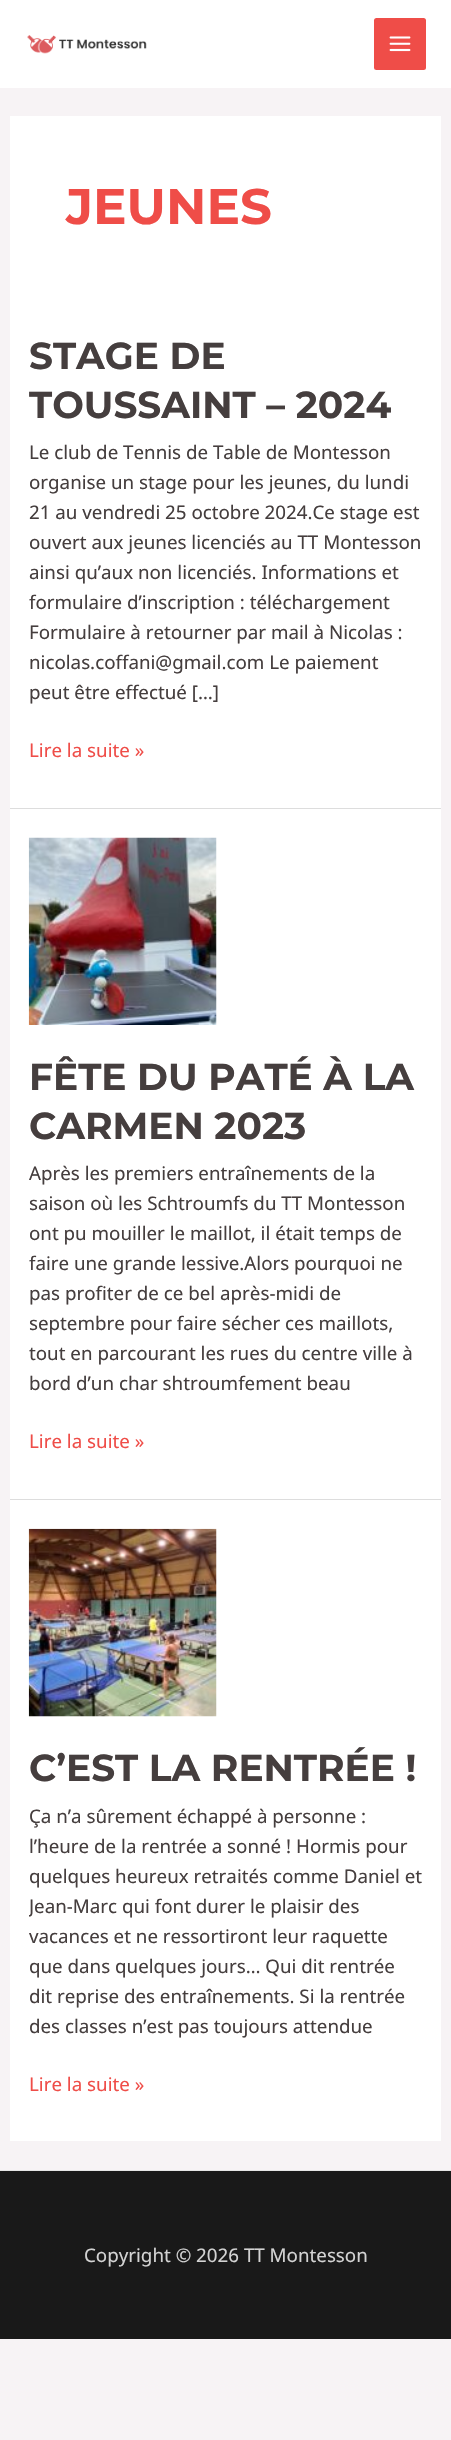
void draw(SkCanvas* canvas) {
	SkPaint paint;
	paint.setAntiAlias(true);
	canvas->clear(0xfff7f3f5);
	paint.setColor(0xffffffff);
	canvas->drawRect(SkRect::MakeXYWH(0, 0, 451, 88), paint);
	canvas->drawImageRect(SkImages::DeferredFromEncodedData(SkData::MakeFromFileName("img1.png")), SkRect::MakeXYWH(27, 35, 120, 19), SkSamplingOptions());
	paint.setColor(0xffef4d48);
	canvas->drawRoundRect(SkRect::MakeXYWH(374, 18, 52, 52), 2.5, 2.5, paint);
	canvas->drawImageRect(SkImages::DeferredFromEncodedData(SkData::MakeFromFileName("img2.png")), SkRect::MakeXYWH(389, 36, 22, 16), SkSamplingOptions());
	paint.setColor(0xffffffff);
	canvas->drawRect(SkRect::MakeXYWH(10, 116, 431, 692), paint);
	SkFont f1(fontMgr->matchFamilyStyle("Montserrat", SkFontStyle(100, SkFontStyle::kNormal_Width, SkFontStyle::kUpright_Slant)), 50);
	f1.setSubpixel(true);
	paint.setColor(0xffef4d48);
	canvas->drawString("JEUNES", 66, 224, f1, paint);
	paint.setColor(0xffdddddd);
	canvas->drawRect(SkRect::MakeXYWH(10, 808, 431, 1), paint);
	SkFont f2(fontMgr->matchFamilyStyle("Montserrat", SkFontStyle(100, SkFontStyle::kNormal_Width, SkFontStyle::kUpright_Slant)), 37.5);
	f2.setSubpixel(true);
	paint.setColor(0xff453e3e);
	canvas->drawString("STAGE DE", 29, 369, f2, paint);
	canvas->drawString("TOUSSAINT – 2024", 29, 418, f2, paint);
	SkFont f3(fontMgr->matchFamilyStyle("Noto Sans", SkFontStyle::Normal()), 18.75);
	f3.setSubpixel(true);
	canvas->drawString("Le club de Tennis de Table de Montesson", 29, 459, f3, paint);
	canvas->drawString("organise un stage pour les jeunes, du lundi", 29, 489, f3, paint);
	canvas->drawString("21 au vendredi 25 octobre 2024.Ce stage est", 29, 519, f3, paint);
	canvas->drawString("ouvert aux jeunes licenciés au TT Montesson", 29, 549, f3, paint);
	canvas->drawString("ainsi qu’aux non licenciés. Informations et", 29, 579, f3, paint);
	canvas->drawString("formulaire d’inscription : téléchargement", 29, 609, f3, paint);
	canvas->drawString("Formulaire à retourner par mail à Nicolas :", 29, 639, f3, paint);
	canvas->drawString("nicolas.coffani@gmail.com Le paiement", 29, 669, f3, paint);
	canvas->drawString("peut être effectué […]", 29, 699, f3, paint);
	paint.setColor(0xffef4d48);
	canvas->drawString("Lire la suite »", 29, 757, f3, paint);
	paint.setColor(0xffffffff);
	canvas->drawRect(SkRect::MakeXYWH(10, 809, 431, 690), paint);
	paint.setColor(0xffdddddd);
	canvas->drawRect(SkRect::MakeXYWH(10, 1499, 431, 1), paint);
	canvas->drawImageRect(SkImages::DeferredFromEncodedData(SkData::MakeFromFileName("img3.png")), SkRect::MakeXYWH(28, 837, 189, 188), SkSamplingOptions());
	paint.setColor(0xff453e3e);
	canvas->drawString("FÊTE DU PATÉ À LA", 29, 1090, f2, paint);
	canvas->drawString("CARMEN 2023", 29, 1139, f2, paint);
	canvas->drawString("Après les premiers entraînements de la", 29, 1180, f3, paint);
	canvas->drawString("saison où les Schtroumfs du TT Montesson", 29, 1210, f3, paint);
	canvas->drawString("ont pu mouiller le maillot, il était temps de", 29, 1240, f3, paint);
	canvas->drawString("faire une grande lessive.Alors pourquoi ne", 29, 1270, f3, paint);
	canvas->drawString("pas profiter de ce bel après-midi de", 29, 1300, f3, paint);
	canvas->drawString("septembre pour faire sécher ces maillots,", 29, 1330, f3, paint);
	canvas->drawString("tout en parcourant les rues du centre ville à", 29, 1360, f3, paint);
	canvas->drawString("bord d’un char shtroumfement beau", 29, 1390, f3, paint);
	paint.setColor(0xffef4d48);
	canvas->drawString("Lire la suite »", 29, 1448, f3, paint);
	paint.setColor(0xffffffff);
	canvas->drawRect(SkRect::MakeXYWH(10, 1500, 431, 641), paint);
	canvas->drawImageRect(SkImages::DeferredFromEncodedData(SkData::MakeFromFileName("img4.png")), SkRect::MakeXYWH(28, 1528, 189, 189), SkSamplingOptions());
	paint.setColor(0xff453e3e);
	canvas->drawString("C’EST LA RENTRÉE !", 29, 1781, f2, paint);
	canvas->drawString("Ça n’a sûrement échappé à personne :", 29, 1823, f3, paint);
	canvas->drawString("l’heure de la rentrée a sonné ! Hormis pour", 29, 1853, f3, paint);
	canvas->drawString("quelques heureux retraités comme Daniel et", 29, 1883, f3, paint);
	canvas->save();
	canvas->clipRect(SkRect::MakeXYWH(29, 1529, 394, 585));
	canvas->drawString("Jean-Marc qui font durer le plaisir des", 29, 1913, f3, paint);
	canvas->restore();
	canvas->drawString("vacances et ne ressortiront leur raquette", 29, 1943, f3, paint);
	canvas->drawString("que dans quelques jours… Qui dit rentrée", 29, 1973, f3, paint);
	canvas->drawString("dit reprise des entraînements. Si la rentrée", 29, 2003, f3, paint);
	canvas->drawString("des classes n’est pas toujours attendue", 29, 2033, f3, paint);
	paint.setColor(0xffef4d48);
	canvas->drawString("Lire la suite »", 29, 2091, f3, paint);
	paint.setColor(0xff191919);
	canvas->drawRect(SkRect::MakeXYWH(0, 2171, 451, 168), paint);
	paint.setColor(0xffe6e6e6);
	canvas->drawRect(SkRect::MakeXYWH(0, 2170, 451, 1), paint);
	paint.setColor(0xffd3d3d3);
	canvas->drawString("Copyright © 2026 TT Montesson", 84, 2262, f3, paint);
}
